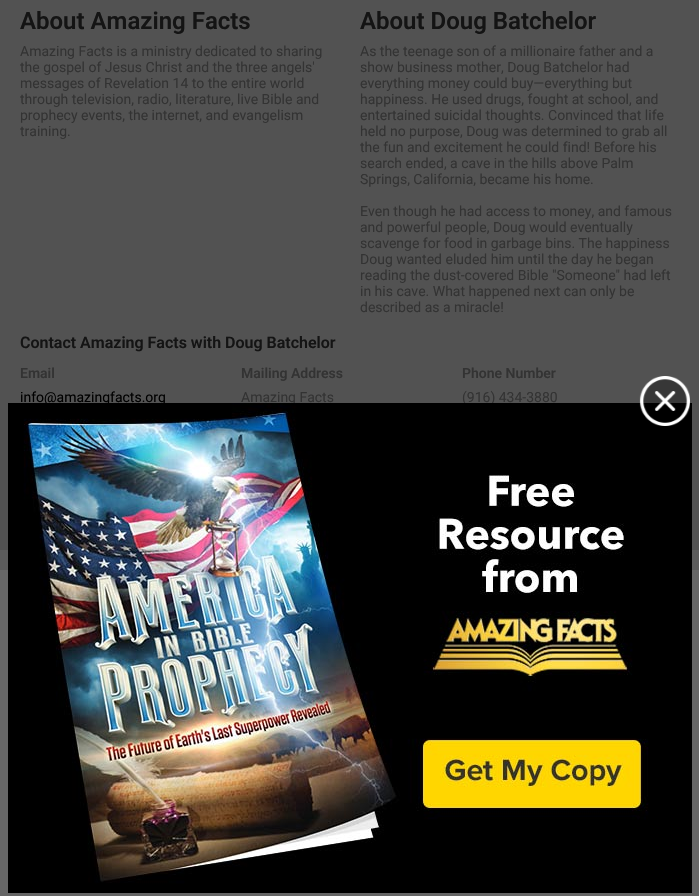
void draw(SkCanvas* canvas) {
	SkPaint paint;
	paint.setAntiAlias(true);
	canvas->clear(0xff525252);
	SkFont f1(fontMgr->matchFamilyStyle("Roboto", SkFontStyle(600, SkFontStyle::kNormal_Width, SkFontStyle::kUpright_Slant)), 24);
	f1.setSubpixel(true);
	paint.setColor(0xff141414);
	canvas->drawString("About Amazing Facts", 20, 29, f1, paint);
	SkFont f2(fontMgr->matchFamilyStyle("Roboto", SkFontStyle::Normal()), 14);
	f2.setSubpixel(true);
	paint.setColor(0xff333333);
	canvas->drawString("Amazing Facts is a ministry dedicated to sharing", 20, 56, f2, paint);
	canvas->drawString("the gospel of Jesus Christ and the three angels'", 20, 72, f2, paint);
	canvas->drawString("messages of Revelation 14 to the entire world", 20, 88, f2, paint);
	canvas->drawString("through television, radio, literature, live Bible and", 20, 104, f2, paint);
	canvas->drawString("prophecy events, the internet, and evangelism", 20, 120, f2, paint);
	canvas->drawString("training.", 20, 136, f2, paint);
	paint.setColor(0xff141414);
	canvas->drawString("About Doug Batchelor", 360, 29, f1, paint);
	paint.setColor(0xff333333);
	canvas->drawString("As the teenage son of a millionaire father and a", 360, 56, f2, paint);
	canvas->drawString("show business mother, Doug Batchelor had", 360, 72, f2, paint);
	canvas->drawString("everything money could buy—everything but", 360, 88, f2, paint);
	canvas->drawString("happiness. He used drugs, fought at school, and", 360, 104, f2, paint);
	canvas->drawString("entertained suicidal thoughts. Convinced that life", 360, 120, f2, paint);
	canvas->drawString("held no purpose, Doug was determined to grab all", 360, 136, f2, paint);
	canvas->drawString("the fun and excitement he could find! Before his", 360, 152, f2, paint);
	canvas->drawString("search ended, a cave in the hills above Palm", 360, 168, f2, paint);
	canvas->drawString("Springs, California, became his home.", 360, 184, f2, paint);
	canvas->drawString("Even though he had access to money, and famous", 360, 216, f2, paint);
	canvas->drawString("and powerful people, Doug would eventually", 360, 232, f2, paint);
	canvas->drawString("scavenge for food in garbage bins. The happiness", 360, 248, f2, paint);
	canvas->drawString("Doug wanted eluded him until the day he began", 360, 264, f2, paint);
	canvas->drawString("reading the dust-covered Bible \"Someone\" had left", 360, 280, f2, paint);
	canvas->drawString("in his cave. What happened next can only be", 360, 296, f2, paint);
	canvas->drawString("described as a miracle!", 360, 312, f2, paint);
	SkFont f3(fontMgr->matchFamilyStyle("Roboto", SkFontStyle(600, SkFontStyle::kNormal_Width, SkFontStyle::kUpright_Slant)), 16);
	f3.setSubpixel(true);
	paint.setColor(0xff141414);
	canvas->drawString("Contact Amazing Facts with Doug Batchelor", 20, 348, f3, paint);
	SkFont f4(fontMgr->matchFamilyStyle("Roboto", SkFontStyle(600, SkFontStyle::kNormal_Width, SkFontStyle::kUpright_Slant)), 14);
	f4.setSubpixel(true);
	paint.setColor(0xff333333);
	canvas->drawString("Email", 20, 378, f4, paint);
	paint.setColor(0xff000000);
	canvas->drawString("info@amazingfacts.org", 20, 402, f2, paint);
	paint.setColor(0xff333333);
	canvas->drawString("Mailing Address", 241, 378, f4, paint);
	canvas->drawString("Amazing Facts", 241, 402, f2, paint);
	canvas->drawString("Phone Number", 462, 378, f4, paint);
	canvas->drawString("(916) 434-3880", 462, 402, f2, paint);
	paint.setColor(0xff5c5c5c);
	canvas->drawRect(SkRect::MakeXYWH(0, 550, 699, 20), paint);
	paint.setColor(0xff666666);
	canvas->drawRect(SkRect::MakeXYWH(0, 570, 699, 326), paint);
	canvas->drawImageRect(SkImages::DeferredFromEncodedData(SkData::MakeFromFileName("img2.png")), SkRect::MakeXYWH(8, 403, 684, 490), SkSamplingOptions());
	canvas->drawImageRect(SkImages::DeferredFromEncodedData(SkData::MakeFromFileName("img1.png")), SkRect::MakeXYWH(639, 376, 51, 50), SkSamplingOptions());
}
